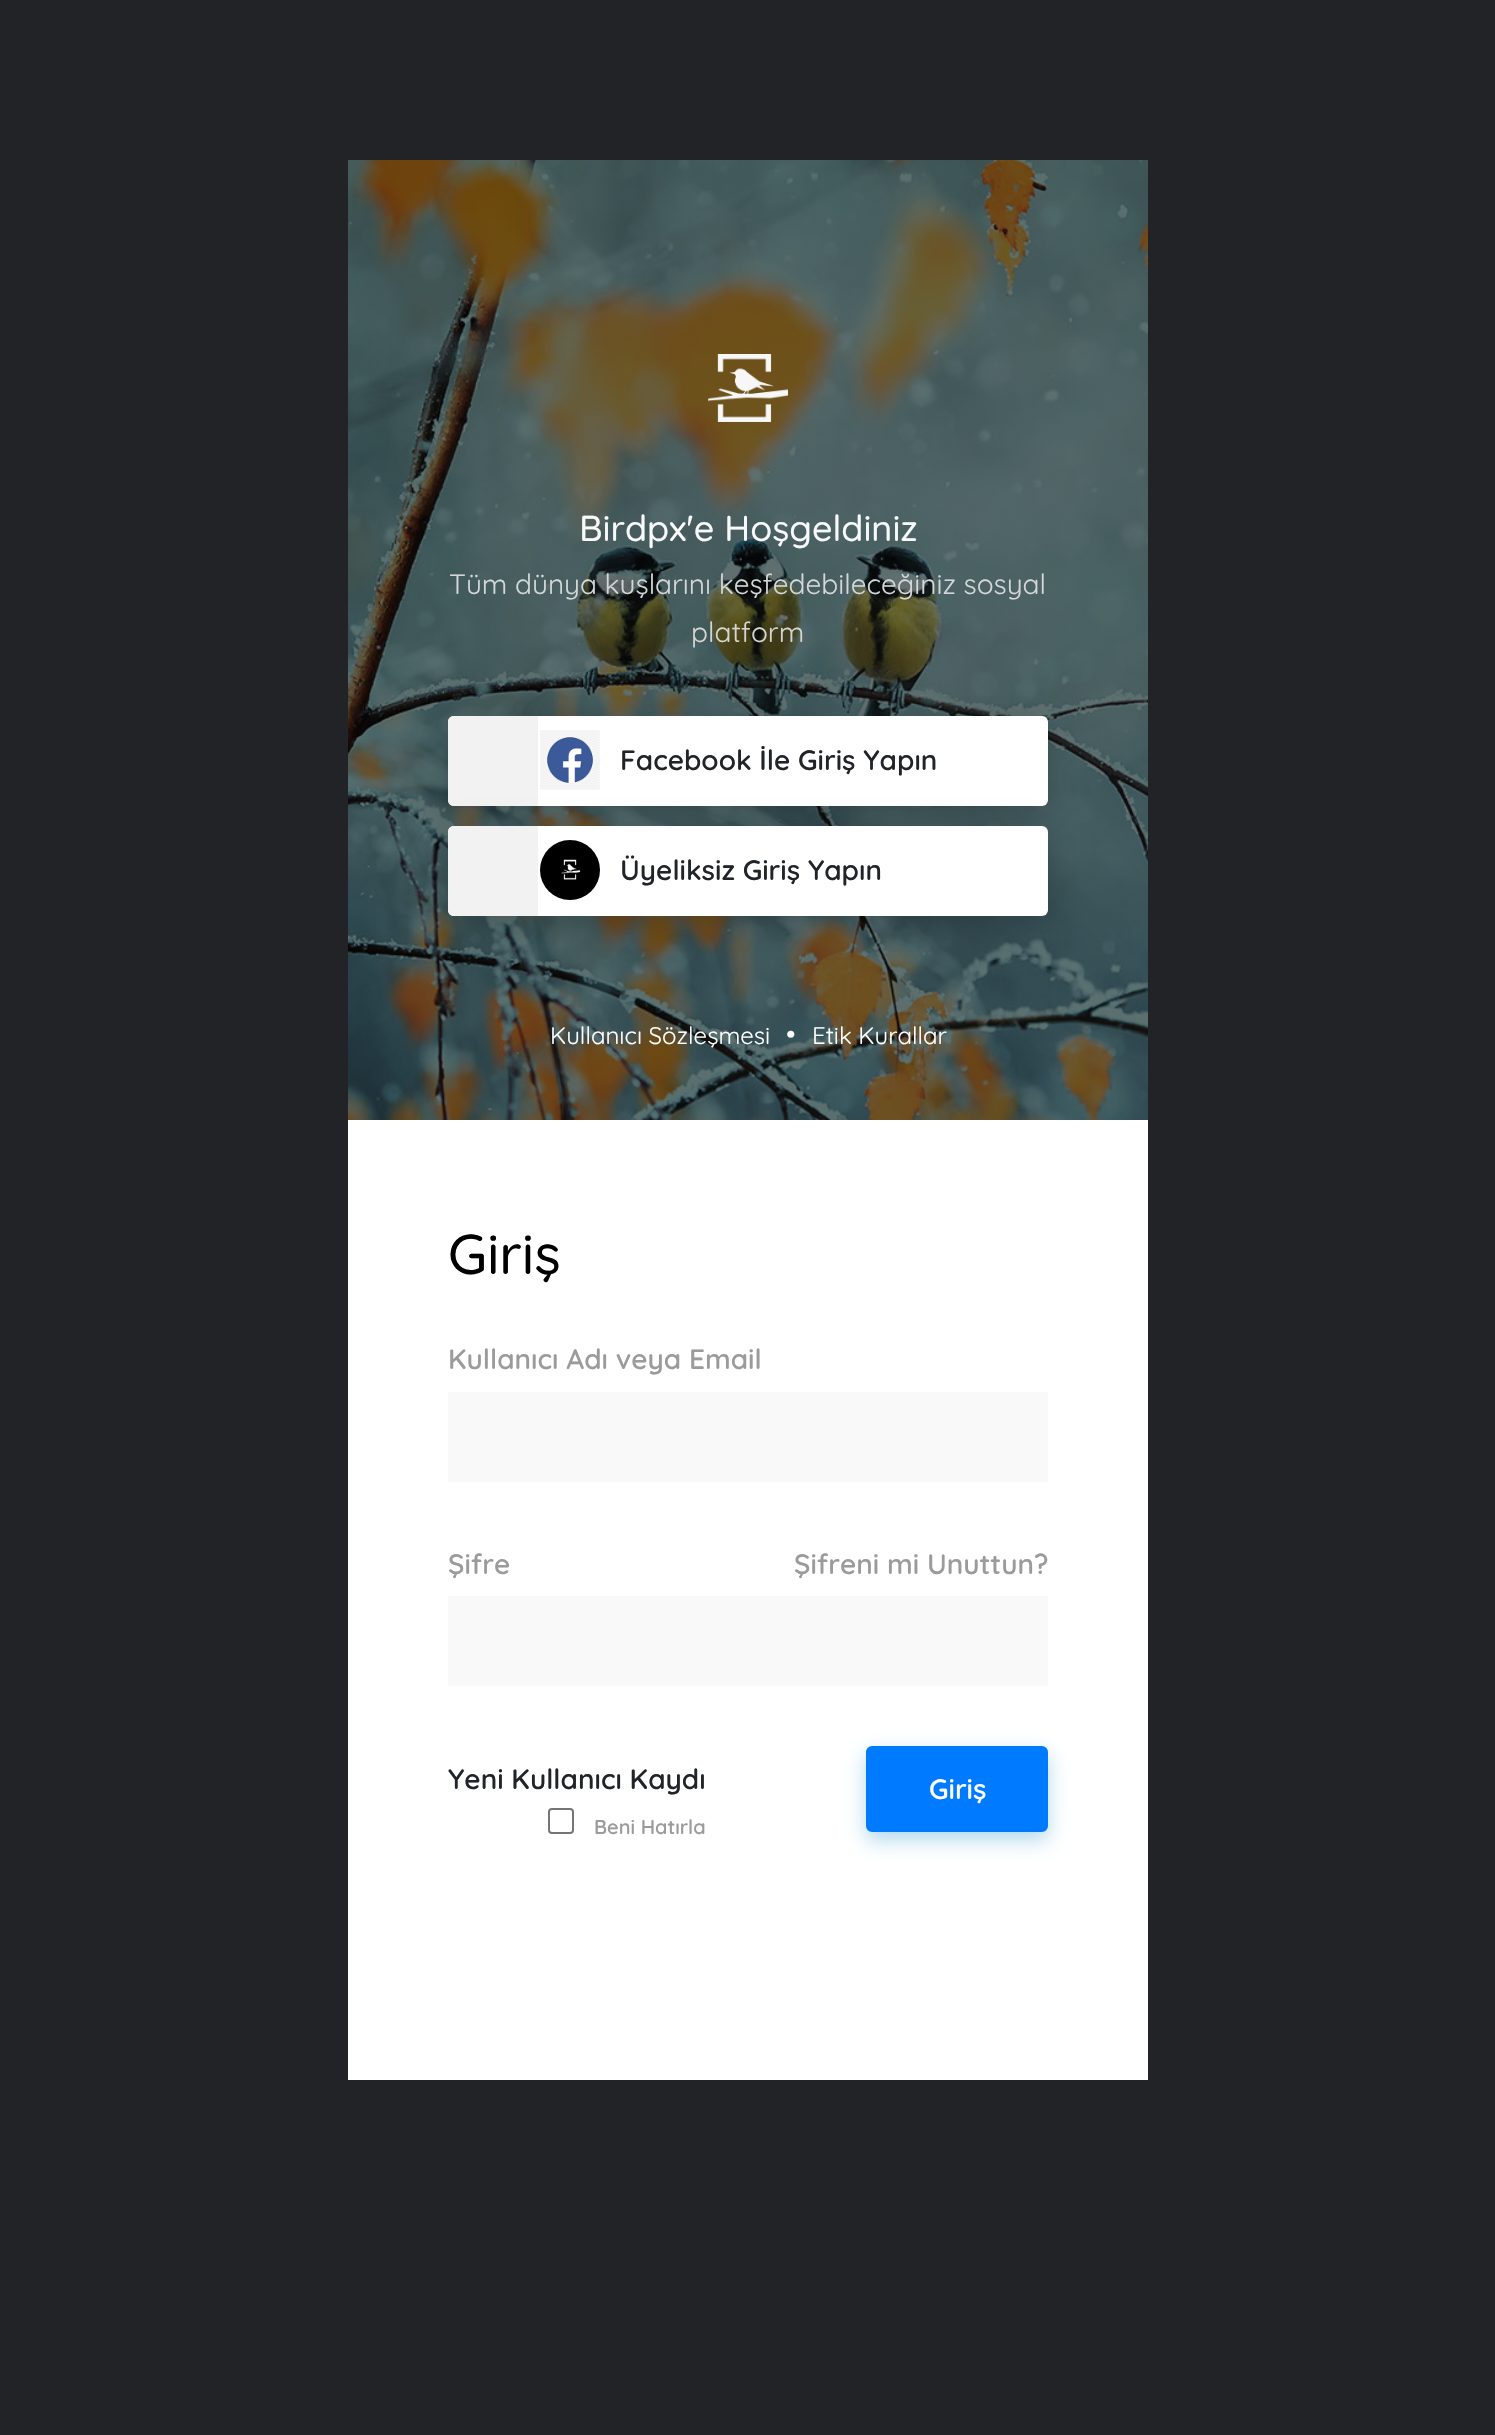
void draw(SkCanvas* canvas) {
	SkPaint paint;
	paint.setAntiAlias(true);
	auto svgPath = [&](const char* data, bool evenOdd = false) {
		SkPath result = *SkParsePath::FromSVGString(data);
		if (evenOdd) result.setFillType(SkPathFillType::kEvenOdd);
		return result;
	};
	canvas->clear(0xff222326);
	paint.setColor(0xffffffff);
	canvas->drawRect(SkRect::MakeXYWH(348, 1120, 800, 960), paint);
	canvas->drawImageRect(SkImages::DeferredFromEncodedData(SkData::MakeFromFileName("img1.png")), SkRect::MakeXYWH(348, 160, 800, 960), SkSamplingOptions());
	canvas->drawImageRect(SkImages::DeferredFromEncodedData(SkData::MakeFromFileName("img2.png")), SkRect::MakeXYWH(708, 354, 80, 68), SkSamplingOptions());
	SkFont f1(fontMgr->matchFamilyStyle("Quicksand", SkFontStyle(500, SkFontStyle::kNormal_Width, SkFontStyle::kUpright_Slant)), 36);
	f1.setSubpixel(true);
	paint.setColor(0xfff8f9fa);
	canvas->drawString("Birdpx'e Hoşgeldiniz", 579, 541, f1, paint);
	SkFont f2(fontMgr->matchFamilyStyle("Quicksand", SkFontStyle::Normal()), 28);
	f2.setSubpixel(true);
	paint.setColor(0xffd3d7d8);
	canvas->drawString("Tüm dünya kuşlarını keşfedebileceğiniz sosyal", 449, 594, f2, paint);
	paint.setColor(0xffd4d5d1);
	canvas->drawString("platform", 691, 642, f2, paint);
	paint.setColor(0x33000000);
	paint.setMaskFilter(SkMaskFilter::MakeBlur(kNormal_SkBlurStyle, 15));
	canvas->drawRoundRect(SkRect::MakeXYWH(448, 724, 600, 90), 6, 6, paint);
	paint.setMaskFilter(nullptr);
	paint.setColor(0xffffffff);
	canvas->drawRoundRect(SkRect::MakeXYWH(448, 716, 600, 90), 6, 6, paint);
	paint.setColor(0xfff2f2f2);
	canvas->drawPath(svgPath("M454 716H538V806H454C450.5 806 448 803.5 448 800V722C448 718.5 450.5 716 454 716Z"), paint);
	canvas->drawImageRect(SkImages::DeferredFromEncodedData(SkData::MakeFromFileName("img3.png")), SkRect::MakeXYWH(540, 730, 60, 60), SkSamplingOptions());
	SkFont f3(fontMgr->matchFamilyStyle("Quicksand", SkFontStyle(600, SkFontStyle::kNormal_Width, SkFontStyle::kUpright_Slant)), 28);
	f3.setSubpixel(true);
	paint.setColor(0xff212529);
	canvas->drawString("Facebook İle Giriş Yapın", 620, 770, f3, paint);
	paint.setColor(0x33000000);
	paint.setMaskFilter(SkMaskFilter::MakeBlur(kNormal_SkBlurStyle, 15));
	canvas->drawRoundRect(SkRect::MakeXYWH(448, 834, 600, 90), 6, 6, paint);
	paint.setMaskFilter(nullptr);
	paint.setColor(0xffffffff);
	canvas->drawRoundRect(SkRect::MakeXYWH(448, 826, 600, 90), 6, 6, paint);
	paint.setColor(0xfff2f2f2);
	canvas->drawPath(svgPath("M454 826H538V916H454C450.5 916 448 913.5 448 910V832C448 828.5 450.5 826 454 826Z"), paint);
	canvas->drawImageRect(SkImages::DeferredFromEncodedData(SkData::MakeFromFileName("img4.png")), SkRect::MakeXYWH(540, 840, 60, 60), SkSamplingOptions());
	paint.setColor(0xff212529);
	canvas->drawString("Üyeliksiz Giriş Yapın", 620, 880, f3, paint);
	SkFont f4(fontMgr->matchFamilyStyle("Quicksand", SkFontStyle::Normal()), 24);
	f4.setSubpixel(true);
	paint.setColor(0xffffffff);
	canvas->drawString("Kullanıcı Sözleşmesi", 550, 1044, f4, paint);
	SkFont f5(fontMgr->matchFamilyStyle("Quicksand", SkFontStyle(300, SkFontStyle::kNormal_Width, SkFontStyle::kUpright_Slant)), 28);
	f5.setSubpixel(true);
	canvas->drawString("•", 786, 1044, f5, paint);
	canvas->drawString("Etik Kurallar", 812, 1044, f4, paint);
	SkFont f6(fontMgr->matchFamilyStyle("Quicksand", SkFontStyle(500, SkFontStyle::kNormal_Width, SkFontStyle::kUpright_Slant)), 56);
	f6.setSubpixel(true);
	paint.setColor(0xff000000);
	canvas->drawString("Giriş", 448, 1274, f6, paint);
	paint.setColor(0xff9b9b9b);
	canvas->drawString("Kullanıcı Adı veya Email", 448, 1369, f3, paint);
	paint.setColor(0xfff9f9f9);
	canvas->drawRect(SkRect::MakeXYWH(448, 1392, 600, 90), paint);
	paint.setColor(0xff9b9b9b);
	canvas->drawString("Şifre", 448, 1574, f3, paint);
	canvas->drawString("Şifreni mi Unuttun?", 794, 1574, f3, paint);
	paint.setColor(0xfff9f9f9);
	canvas->drawRect(SkRect::MakeXYWH(448, 1596, 600, 90), paint);
	paint.setColor(0xff212529);
	canvas->drawString("Yeni Kullanıcı Kaydı", 448, 1789, f3, paint);
	paint.setStroke(true);
	paint.setStrokeWidth(2);
	paint.setColor(0xff767676);
	canvas->drawRoundRect(SkRect::MakeXYWH(549, 1809, 24, 24), 3, 3, paint);
	SkFont f7(fontMgr->matchFamilyStyle("Quicksand", SkFontStyle(600, SkFontStyle::kNormal_Width, SkFontStyle::kUpright_Slant)), 20);
	f7.setSubpixel(true);
	paint.setStroke(false);
	paint.setColor(0xff9b9b9b);
	canvas->drawString("Beni Hatırla", 594, 1834, f7, paint);
	paint.setColor(0x4d0081c6);
	paint.setMaskFilter(SkMaskFilter::MakeBlur(kNormal_SkBlurStyle, 10));
	canvas->drawRoundRect(SkRect::MakeXYWH(866, 1754, 182, 86), 6, 6, paint);
	paint.setMaskFilter(nullptr);
	paint.setColor(0xff007bff);
	canvas->drawRoundRect(SkRect::MakeXYWH(867, 1747, 180, 84), 5, 5, paint);
	paint.setStroke(true);
	canvas->drawRoundRect(SkRect::MakeXYWH(867, 1747, 180, 84), 5, 5, paint);
	paint.setStroke(false);
	paint.setColor(0xffffffff);
	canvas->drawString("Giriş", 929, 1799, f3, paint);
}
